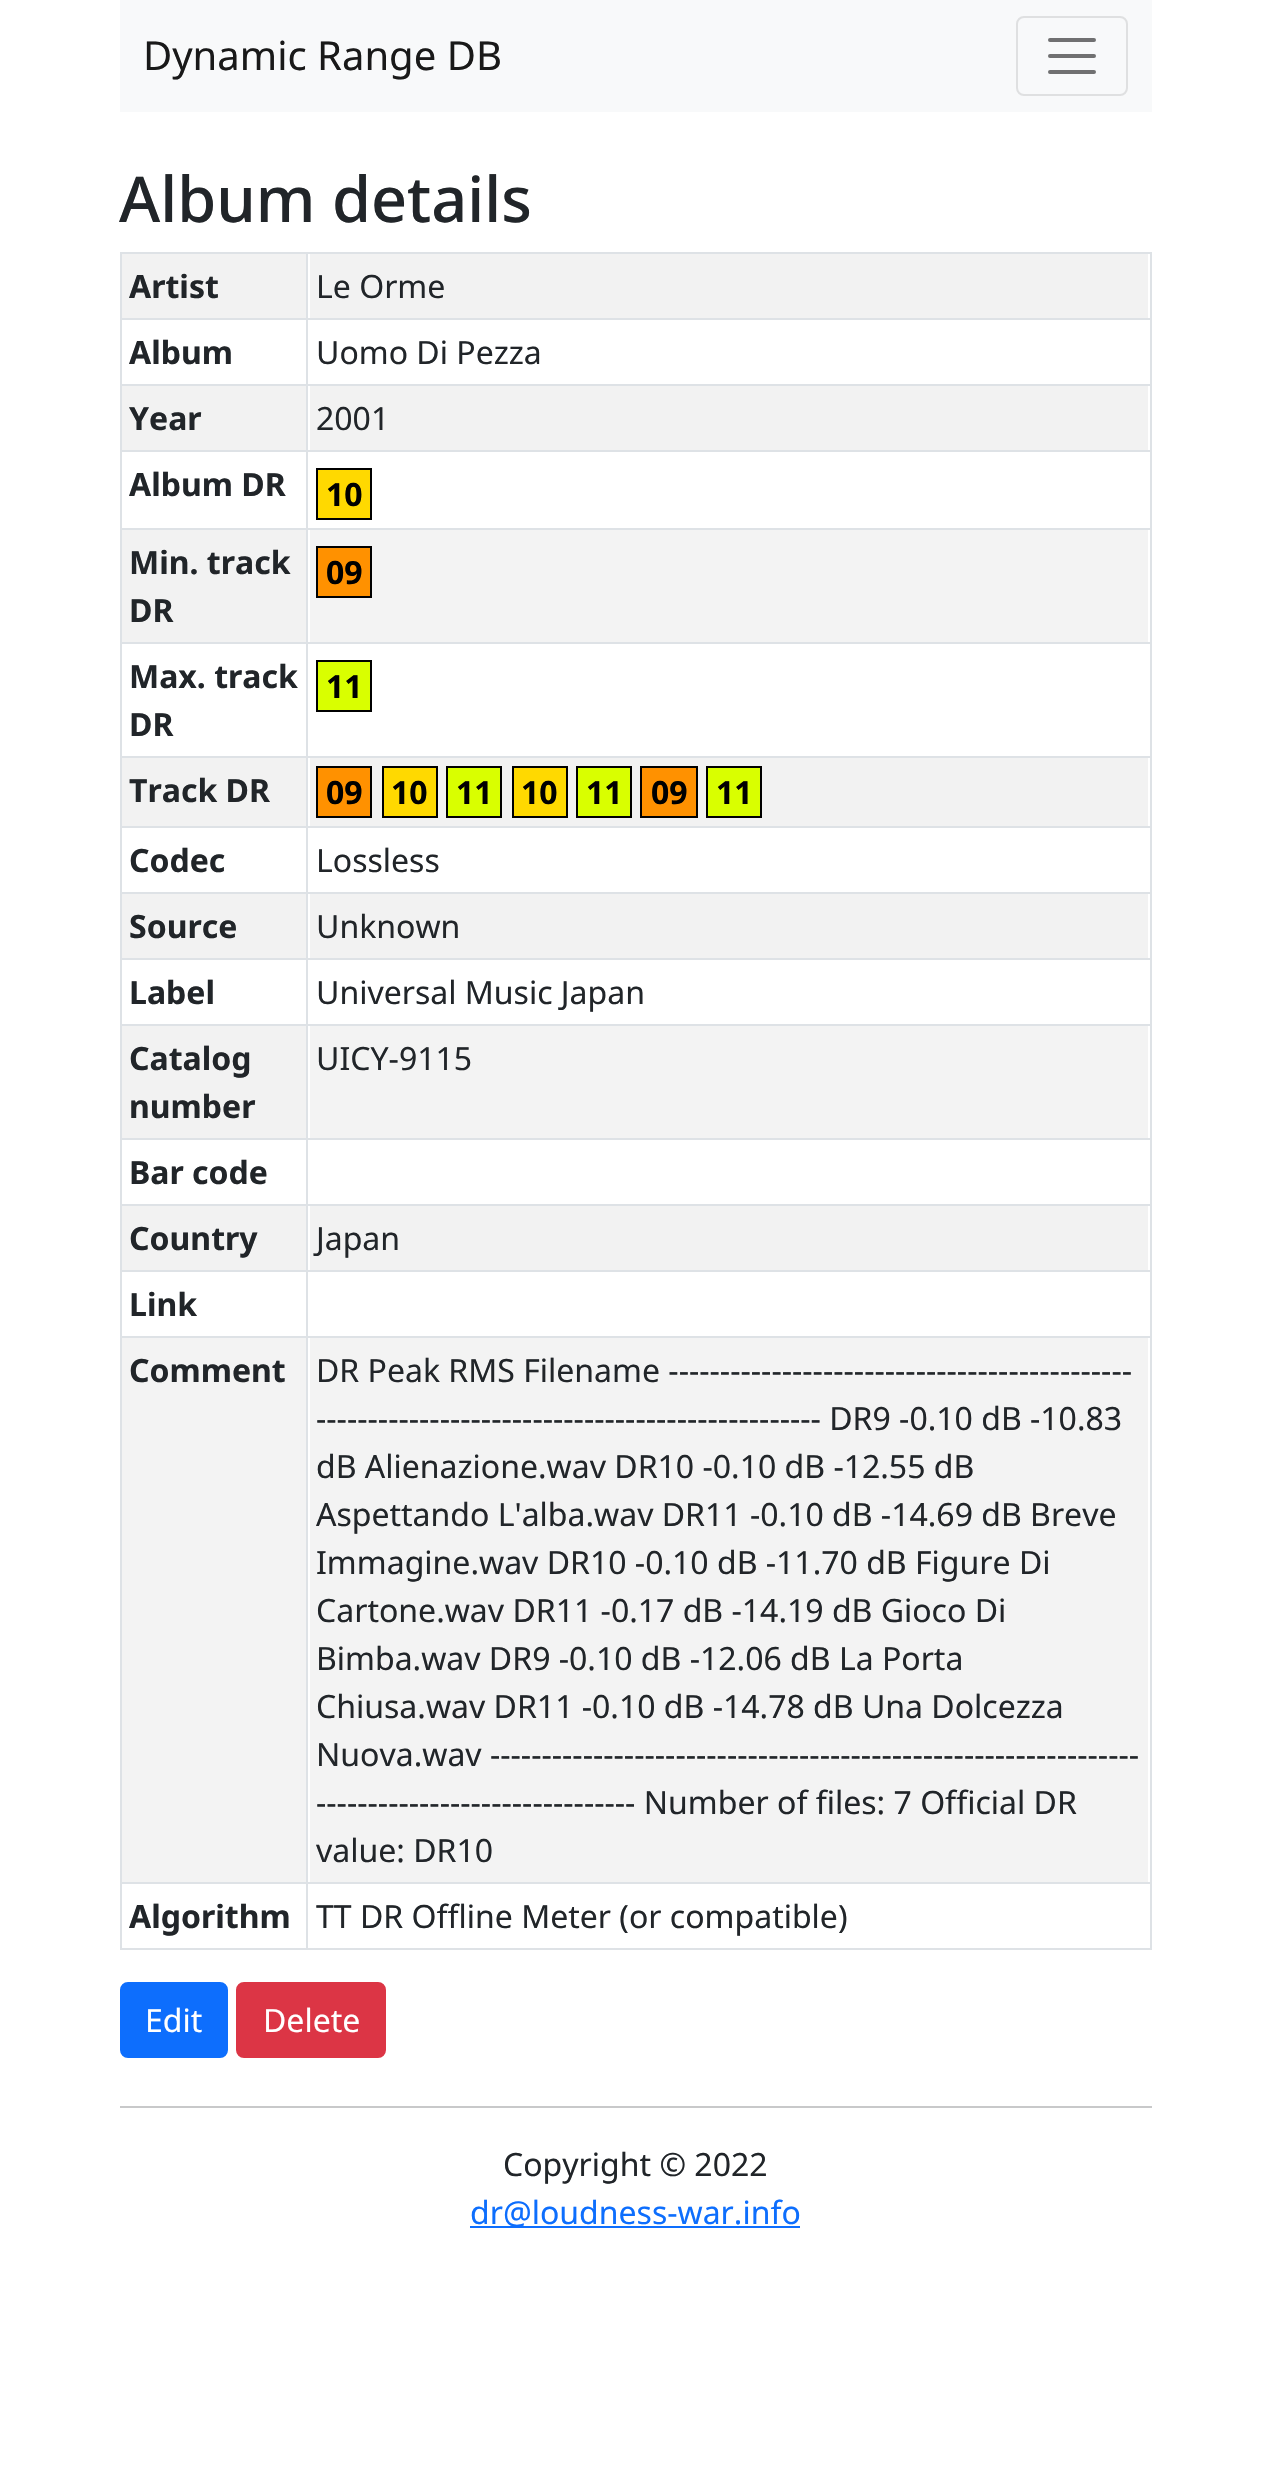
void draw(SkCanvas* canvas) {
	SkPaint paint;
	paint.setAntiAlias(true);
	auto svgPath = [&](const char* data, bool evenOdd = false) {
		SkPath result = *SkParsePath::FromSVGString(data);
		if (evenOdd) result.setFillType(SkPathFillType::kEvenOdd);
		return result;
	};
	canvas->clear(0xffffffff);
	paint.setColor(0xfff8f9fa);
	canvas->drawRect(SkRect::MakeXYWH(120, 0, 1032, 112), paint);
	SkFont f1(fontMgr->matchFamilyStyle("Noto Sans", SkFontStyle::Normal()), 40);
	f1.setSubpixel(true);
	paint.setColor(0xff191919);
	canvas->drawString("Dynamic Range DB", 143, 70, f1, paint);
	paint.setStroke(true);
	paint.setStrokeWidth(2);
	paint.setColor(0xffdfe0e1);
	canvas->drawRoundRect(SkRect::MakeXYWH(1017, 17, 110, 78), 7, 7, paint);
	paint.setStrokeWidth(4);
	paint.setStrokeCap(SkPaint::kRound_Cap);
	paint.setColor(0xff707071);
	canvas->drawPath(svgPath("M1050 40H1094M1050 56H1094M1050 72H1094"), paint);
	SkFont f2(fontMgr->matchFamilyStyle("Noto Sans", SkFontStyle(500, SkFontStyle::kNormal_Width, SkFontStyle::kUpright_Slant)), 63);
	f2.setSubpixel(true);
	paint.setStroke(false);
	paint.setColor(0xff212529);
	canvas->drawString("Album details", 119, 222, f2, paint);
	paint.setColor(0xffdee2e6);
	canvas->drawRect(SkRect::MakeXYWH(120, 252, 1032, 2), paint);
	paint.setColor(0xfff2f2f2);
	canvas->drawRect(SkRect::MakeXYWH(122, 254, 184, 64), paint);
	SkFont f3(fontMgr->matchFamilyStyle("Noto Sans", SkFontStyle::Bold()), 32);
	f3.setSubpixel(true);
	paint.setColor(0xff212529);
	canvas->drawString("Artist", 129, 298, f3, paint);
	paint.setColor(0xfff2f2f2);
	canvas->drawRect(SkRect::MakeXYWH(310, 254, 838, 64), paint);
	SkFont f4(fontMgr->matchFamilyStyle("Noto Sans", SkFontStyle::Normal()), 32);
	f4.setSubpixel(true);
	paint.setColor(0xff212529);
	canvas->drawString("Le Orme", 316, 298, f4, paint);
	paint.setColor(0xffdee2e6);
	canvas->drawRect(SkRect::MakeXYWH(120, 318, 1032, 2), paint);
	paint.setColor(0xff212529);
	canvas->drawString("Album", 129, 364, f3, paint);
	canvas->drawString("Uomo Di Pezza", 316, 364, f4, paint);
	paint.setColor(0xffdee2e6);
	canvas->drawRect(SkRect::MakeXYWH(120, 384, 1032, 2), paint);
	paint.setColor(0xfff2f2f2);
	canvas->drawRect(SkRect::MakeXYWH(122, 386, 184, 64), paint);
	paint.setColor(0xff212529);
	canvas->drawString("Year", 129, 430, f3, paint);
	paint.setColor(0xfff2f2f2);
	canvas->drawRect(SkRect::MakeXYWH(310, 386, 838, 64), paint);
	paint.setColor(0xff212529);
	canvas->drawString("2001", 316, 430, f4, paint);
	paint.setColor(0xffdee2e6);
	canvas->drawRect(SkRect::MakeXYWH(120, 450, 1032, 2), paint);
	paint.setColor(0xff212529);
	canvas->drawString("Album DR", 129, 496, f3, paint);
	paint.setColor(0xffffd900);
	canvas->drawRect(SkRect::MakeXYWH(317, 469, 54, 50), paint);
	paint.setStroke(true);
	paint.setStrokeWidth(2);
	paint.setStrokeCap(SkPaint::kButt_Cap);
	paint.setColor(0xff000000);
	canvas->drawRect(SkRect::MakeXYWH(317, 469, 54, 50), paint);
	paint.setStroke(false);
	canvas->drawString("10", 326, 506, f3, paint);
	paint.setColor(0xffdee2e6);
	canvas->drawRect(SkRect::MakeXYWH(120, 528, 1032, 2), paint);
	paint.setColor(0xfff2f2f2);
	canvas->drawRect(SkRect::MakeXYWH(122, 530, 184, 112), paint);
	paint.setColor(0xff212529);
	canvas->drawString("Min. track", 129, 574, f3, paint);
	canvas->drawString("DR", 129, 622, f3, paint);
	paint.setColor(0xfff3f3f3);
	canvas->drawRect(SkRect::MakeXYWH(310, 530, 838, 112), paint);
	paint.setColor(0xffff9100);
	canvas->drawRect(SkRect::MakeXYWH(317, 547, 54, 50), paint);
	paint.setStroke(true);
	paint.setColor(0xff000000);
	canvas->drawRect(SkRect::MakeXYWH(317, 547, 54, 50), paint);
	paint.setStroke(false);
	canvas->drawString("09", 326, 584, f3, paint);
	paint.setColor(0xffdee2e6);
	canvas->drawRect(SkRect::MakeXYWH(120, 642, 1032, 2), paint);
	paint.setColor(0xff212529);
	canvas->drawString("Max. track", 129, 688, f3, paint);
	canvas->drawString("DR", 129, 736, f3, paint);
	paint.setColor(0xffd9ff00);
	canvas->drawRect(SkRect::MakeXYWH(317, 661, 54, 50), paint);
	paint.setStroke(true);
	paint.setColor(0xff000000);
	canvas->drawRect(SkRect::MakeXYWH(317, 661, 54, 50), paint);
	paint.setStroke(false);
	canvas->drawString("11", 326, 698, f3, paint);
	paint.setColor(0xffdee2e6);
	canvas->drawRect(SkRect::MakeXYWH(120, 756, 1032, 2), paint);
	paint.setColor(0xfff2f2f2);
	canvas->drawRect(SkRect::MakeXYWH(122, 758, 184, 68), paint);
	paint.setColor(0xff212529);
	canvas->drawString("Track DR", 129, 802, f3, paint);
	paint.setColor(0xfff2f2f2);
	canvas->drawRect(SkRect::MakeXYWH(310, 758, 838, 68), paint);
	paint.setColor(0xffff9100);
	canvas->drawRect(SkRect::MakeXYWH(317, 767, 54, 50), paint);
	paint.setStroke(true);
	paint.setColor(0xff000000);
	canvas->drawRect(SkRect::MakeXYWH(317, 767, 54, 50), paint);
	paint.setStroke(false);
	canvas->drawString("09", 326, 804, f3, paint);
	paint.setColor(0xffffd900);
	canvas->drawRect(SkRect::MakeXYWH(383, 767, 54, 50), paint);
	paint.setStroke(true);
	paint.setColor(0xff000000);
	canvas->drawRect(SkRect::MakeXYWH(383, 767, 54, 50), paint);
	paint.setStroke(false);
	canvas->drawString("10", 391, 804, f3, paint);
	paint.setColor(0xffd9ff00);
	canvas->drawRect(SkRect::MakeXYWH(447, 767, 54, 50), paint);
	paint.setStroke(true);
	paint.setColor(0xff000000);
	canvas->drawRect(SkRect::MakeXYWH(447, 767, 54, 50), paint);
	paint.setStroke(false);
	canvas->drawString("11", 456, 804, f3, paint);
	paint.setColor(0xffffd900);
	canvas->drawRect(SkRect::MakeXYWH(513, 767, 54, 50), paint);
	paint.setStroke(true);
	paint.setColor(0xff000000);
	canvas->drawRect(SkRect::MakeXYWH(513, 767, 54, 50), paint);
	paint.setStroke(false);
	canvas->drawString("10", 521, 804, f3, paint);
	paint.setColor(0xffd9ff00);
	canvas->drawRect(SkRect::MakeXYWH(577, 767, 54, 50), paint);
	paint.setStroke(true);
	paint.setColor(0xff000000);
	canvas->drawRect(SkRect::MakeXYWH(577, 767, 54, 50), paint);
	paint.setStroke(false);
	canvas->drawString("11", 586, 804, f3, paint);
	paint.setColor(0xffff9100);
	canvas->drawRect(SkRect::MakeXYWH(641, 767, 56, 50), paint);
	paint.setStroke(true);
	paint.setColor(0xff000000);
	canvas->drawRect(SkRect::MakeXYWH(641, 767, 56, 50), paint);
	paint.setStroke(false);
	canvas->drawString("09", 651, 804, f3, paint);
	paint.setColor(0xffd9ff00);
	canvas->drawRect(SkRect::MakeXYWH(707, 767, 54, 50), paint);
	paint.setStroke(true);
	paint.setColor(0xff000000);
	canvas->drawRect(SkRect::MakeXYWH(707, 767, 54, 50), paint);
	paint.setStroke(false);
	canvas->drawString("11", 716, 804, f3, paint);
	paint.setColor(0xffdee2e6);
	canvas->drawRect(SkRect::MakeXYWH(120, 826, 1032, 2), paint);
	paint.setColor(0xff212529);
	canvas->drawString("Codec", 129, 872, f3, paint);
	canvas->drawString("Lossless", 316, 872, f4, paint);
	paint.setColor(0xffdee2e6);
	canvas->drawRect(SkRect::MakeXYWH(120, 892, 1032, 2), paint);
	paint.setColor(0xfff2f2f2);
	canvas->drawRect(SkRect::MakeXYWH(122, 894, 184, 64), paint);
	paint.setColor(0xff212529);
	canvas->drawString("Source", 129, 938, f3, paint);
	paint.setColor(0xfff2f2f2);
	canvas->drawRect(SkRect::MakeXYWH(310, 894, 838, 64), paint);
	paint.setColor(0xff212529);
	canvas->drawString("Unknown", 316, 938, f4, paint);
	paint.setColor(0xffdee2e6);
	canvas->drawRect(SkRect::MakeXYWH(120, 958, 1032, 2), paint);
	paint.setColor(0xff212529);
	canvas->drawString("Label", 129, 1004, f3, paint);
	canvas->drawString("Universal Music Japan", 316, 1004, f4, paint);
	paint.setColor(0xffdee2e6);
	canvas->drawRect(SkRect::MakeXYWH(120, 1024, 1032, 2), paint);
	paint.setColor(0xfff2f2f2);
	canvas->drawRect(SkRect::MakeXYWH(122, 1026, 184, 112), paint);
	paint.setColor(0xff212529);
	canvas->drawString("Catalog", 129, 1070, f3, paint);
	canvas->drawString("number", 129, 1118, f3, paint);
	paint.setColor(0xfff3f3f3);
	canvas->drawRect(SkRect::MakeXYWH(310, 1026, 838, 112), paint);
	paint.setColor(0xff212529);
	canvas->drawString("UICY-9115", 316, 1070, f4, paint);
	paint.setColor(0xffdee2e6);
	canvas->drawRect(SkRect::MakeXYWH(120, 1138, 1032, 2), paint);
	paint.setColor(0xff212529);
	canvas->drawString("Bar code", 129, 1184, f3, paint);
	paint.setColor(0xffdee2e6);
	canvas->drawRect(SkRect::MakeXYWH(120, 1204, 1032, 2), paint);
	paint.setColor(0xfff2f2f2);
	canvas->drawRect(SkRect::MakeXYWH(122, 1206, 184, 64), paint);
	paint.setColor(0xff212529);
	canvas->drawString("Country", 129, 1250, f3, paint);
	paint.setColor(0xfff2f2f2);
	canvas->drawRect(SkRect::MakeXYWH(310, 1206, 838, 64), paint);
	paint.setColor(0xff212529);
	canvas->drawString("Japan", 316, 1250, f4, paint);
	paint.setColor(0xffdee2e6);
	canvas->drawRect(SkRect::MakeXYWH(120, 1270, 1032, 2), paint);
	paint.setColor(0xff212529);
	canvas->drawString("Link", 129, 1316, f3, paint);
	paint.setColor(0xffdee2e6);
	canvas->drawRect(SkRect::MakeXYWH(120, 1336, 1032, 2), paint);
	paint.setColor(0xfff3f3f3);
	canvas->drawRect(SkRect::MakeXYWH(122, 1338, 184, 544), paint);
	paint.setColor(0xff212529);
	canvas->drawString("Comment", 129, 1382, f3, paint);
	paint.setColor(0xfff3f3f3);
	canvas->drawRect(SkRect::MakeXYWH(310, 1338, 838, 544), paint);
	paint.setColor(0xff212529);
	canvas->drawString("DR Peak RMS Filename ---------------------------------------------", 316, 1382, f4, paint);
	canvas->drawString("------------------------------------------------- DR9 -0.10 dB -10.83", 316, 1430, f4, paint);
	canvas->drawString("dB Alienazione.wav DR10 -0.10 dB -12.55 dB", 316, 1478, f4, paint);
	canvas->drawString("Aspettando L'alba.wav DR11 -0.10 dB -14.69 dB Breve", 316, 1526, f4, paint);
	canvas->drawString("Immagine.wav DR10 -0.10 dB -11.70 dB Figure Di", 316, 1574, f4, paint);
	canvas->drawString("Cartone.wav DR11 -0.17 dB -14.19 dB Gioco Di", 316, 1622, f4, paint);
	canvas->drawString("Bimba.wav DR9 -0.10 dB -12.06 dB La Porta", 316, 1670, f4, paint);
	canvas->drawString("Chiusa.wav DR11 -0.10 dB -14.78 dB Una Dolcezza", 316, 1718, f4, paint);
	canvas->drawString("Nuova.wav ---------------------------------------------------------------", 316, 1766, f4, paint);
	canvas->drawString("------------------------------- Number of files: 7 Official DR", 316, 1814, f4, paint);
	canvas->drawString("value: DR10", 316, 1862, f4, paint);
	paint.setColor(0xffdee2e6);
	canvas->drawRect(SkRect::MakeXYWH(120, 1882, 1032, 2), paint);
	canvas->drawRect(SkRect::MakeXYWH(120, 1948, 1032, 2), paint);
	canvas->drawRect(SkRect::MakeXYWH(120, 252, 2, 1698), paint);
	paint.setColor(0xff212529);
	canvas->drawString("Algorithm", 129, 1928, f3, paint);
	paint.setColor(0xffdee2e6);
	canvas->drawRect(SkRect::MakeXYWH(1150, 252, 2, 1698), paint);
	canvas->drawRect(SkRect::MakeXYWH(306, 252, 2, 1698), paint);
	paint.setColor(0xff212529);
	canvas->drawString("TT DR Offline Meter (or compatible)", 316, 1928, f4, paint);
	paint.setColor(0xff0d6efd);
	canvas->drawRoundRect(SkRect::MakeXYWH(121, 1983, 106, 74), 7, 7, paint);
	paint.setStroke(true);
	canvas->drawRoundRect(SkRect::MakeXYWH(121, 1983, 106, 74), 7, 7, paint);
	paint.setStroke(false);
	paint.setColor(0xffffffff);
	canvas->drawString("Edit", 145, 2032, f4, paint);
	paint.setColor(0xffdc3545);
	canvas->drawRoundRect(SkRect::MakeXYWH(237, 1983, 148, 74), 7, 7, paint);
	paint.setStroke(true);
	canvas->drawRoundRect(SkRect::MakeXYWH(237, 1983, 148, 74), 7, 7, paint);
	paint.setStroke(false);
	paint.setColor(0xffffffff);
	canvas->drawString("Delete", 263, 2032, f4, paint);
	paint.setColor(0xffc8c9ca);
	canvas->drawRect(SkRect::MakeXYWH(120, 2106, 1032, 2), paint);
	paint.setColor(0xff212529);
	canvas->drawString("Copyright © 2022", 503, 2176, f4, paint);
	paint.setColor(0xff0d6efd);
	canvas->drawRect(SkRect::MakeXYWH(470, 2226, 330, 2), paint);
	canvas->drawString("dr@loudness-war.info", 470, 2224, f4, paint);
}
